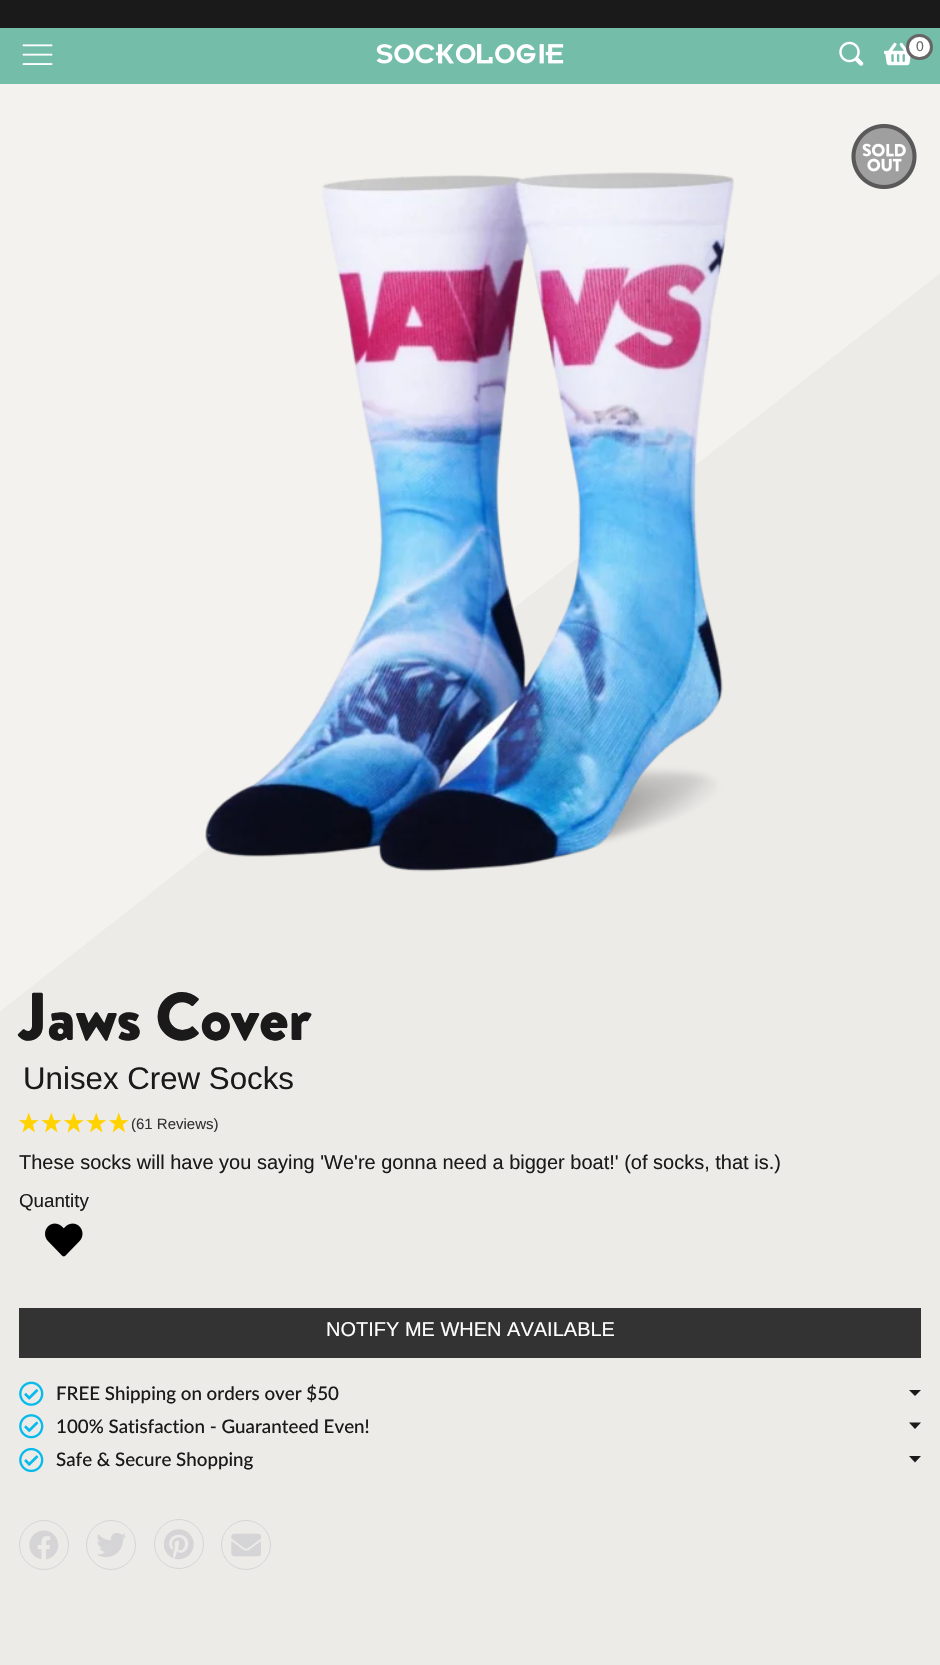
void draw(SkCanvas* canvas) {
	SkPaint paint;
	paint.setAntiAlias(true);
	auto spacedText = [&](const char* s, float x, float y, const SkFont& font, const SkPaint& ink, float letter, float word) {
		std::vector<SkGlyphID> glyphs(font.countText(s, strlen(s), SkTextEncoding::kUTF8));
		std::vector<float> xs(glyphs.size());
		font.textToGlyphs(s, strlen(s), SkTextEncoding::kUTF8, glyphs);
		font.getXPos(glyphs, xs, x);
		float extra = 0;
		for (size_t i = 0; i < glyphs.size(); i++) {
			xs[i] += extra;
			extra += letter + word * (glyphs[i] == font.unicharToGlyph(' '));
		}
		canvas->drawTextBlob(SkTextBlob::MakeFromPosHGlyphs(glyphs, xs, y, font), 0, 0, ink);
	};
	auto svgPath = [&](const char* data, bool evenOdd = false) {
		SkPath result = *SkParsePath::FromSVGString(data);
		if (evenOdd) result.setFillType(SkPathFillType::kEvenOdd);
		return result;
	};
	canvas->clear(0xffffffff);
	paint.setColor(0xff1a1a1a);
	canvas->drawRect(SkRect::MakeXYWH(0, 0, 940, 28), paint);
	paint.setColor(0xff74bda9);
	canvas->drawRect(SkRect::MakeXYWH(0, 28, 940, 56), paint);
	canvas->drawImageRect(SkImages::DeferredFromEncodedData(SkData::MakeFromFileName("img1.png")), SkRect::MakeXYWH(22, 44, 31, 21), SkSamplingOptions());
	canvas->drawImageRect(SkImages::DeferredFromEncodedData(SkData::MakeFromFileName("img2.png")), SkRect::MakeXYWH(376, 44, 188, 20), SkSamplingOptions());
	canvas->drawImageRect(SkImages::DeferredFromEncodedData(SkData::MakeFromFileName("img3.png")), SkRect::MakeXYWH(839, 41, 25, 25), SkSamplingOptions());
	canvas->drawImageRect(SkImages::DeferredFromEncodedData(SkData::MakeFromFileName("img4.png")), SkRect::MakeXYWH(884, 42, 27, 24), SkSamplingOptions());
	paint.setColor(0xffffffff);
	canvas->drawRoundRect(SkRect::MakeXYWH(907.5, 35.5, 24, 23), 11.5, 11.5, paint);
	paint.setStroke(true);
	paint.setStrokeWidth(3);
	paint.setColor(0xff666666);
	canvas->drawRoundRect(SkRect::MakeXYWH(907.5, 35.5, 24, 23), 11.5, 11.5, paint);
	SkFont f1(fontMgr->matchFamilyStyle("Liberation Sans", SkFontStyle::Normal()), 14);
	f1.setSubpixel(true);
	paint.setStroke(false);
	canvas->drawString("0", 916, 51, f1, paint);
	paint.setColor(0xfff4f2ef);
	canvas->drawPath(svgPath("M0 1011L940 273V519V84H0"), paint);
	paint.setColor(0xffedebe8);
	canvas->drawPath(svgPath("M0 1011V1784H940V273Z"), paint);
	canvas->drawImageRect(SkImages::DeferredFromEncodedData(SkData::MakeFromFileName("img5.png")), SkRect::MakeXYWH(851, 124, 66, 65), SkSamplingOptions());
	canvas->drawImageRect(SkImages::DeferredFromEncodedData(SkData::MakeFromFileName("img6.png")), SkRect::MakeXYWH(205, 172, 529, 700), SkSamplingOptions());
	SkFont f2(fontMgr->matchFamilyStyle("Brandon Grotesque", SkFontStyle(900, SkFontStyle::kNormal_Width, SkFontStyle::kUpright_Slant)), 67.5);
	f2.setSubpixel(true);
	paint.setColor(0xff1a1a1a);
	spacedText("Jaws Cover", 19, 1040, f2, paint, -0.6, 0);
	SkFont f3(fontMgr->matchFamilyStyle("Liberation Sans", SkFontStyle::Normal()), 31.25);
	f3.setSubpixel(true);
	canvas->drawString("Unisex Crew Socks", 23, 1089, f3, paint);
	canvas->drawImageRect(SkImages::DeferredFromEncodedData(SkData::MakeFromFileName("img7.png")), SkRect::MakeXYWH(19, 1112, 20, 21), SkSamplingOptions());
	canvas->drawImageRect(SkImages::DeferredFromEncodedData(SkData::MakeFromFileName("img8.png")), SkRect::MakeXYWH(41, 1112, 20, 21), SkSamplingOptions());
	canvas->drawImageRect(SkImages::DeferredFromEncodedData(SkData::MakeFromFileName("img7.png")), SkRect::MakeXYWH(64, 1112, 20, 21), SkSamplingOptions());
	canvas->drawImageRect(SkImages::DeferredFromEncodedData(SkData::MakeFromFileName("img8.png")), SkRect::MakeXYWH(86, 1112, 20, 21), SkSamplingOptions());
	canvas->drawImageRect(SkImages::DeferredFromEncodedData(SkData::MakeFromFileName("img7.png")), SkRect::MakeXYWH(109, 1112, 20, 21), SkSamplingOptions());
	SkFont f4(fontMgr->matchFamilyStyle("Liberation Sans", SkFontStyle::Normal()), 15);
	f4.setSubpixel(true);
	paint.setColor(0xff333333);
	canvas->drawString("(61 Reviews)", 131, 1129, f4, paint);
	SkFont f5(fontMgr->matchFamilyStyle("Liberation Sans", SkFontStyle::Normal()), 20);
	f5.setSubpixel(true);
	paint.setColor(0xff1a1a1a);
	canvas->drawString("These socks will have you saying 'We're gonna need a bigger boat!' (of socks, that is.)", 19, 1169, f5, paint);
	SkFont f6(fontMgr->matchFamilyStyle("Liberation Sans", SkFontStyle::Normal()), 18.75);
	f6.setSubpixel(true);
	canvas->drawString("Quantity", 19, 1207, f6, paint);
	canvas->drawImageRect(SkImages::DeferredFromEncodedData(SkData::MakeFromFileName("img9.png")), SkRect::MakeXYWH(45, 1223, 38, 34), SkSamplingOptions());
	paint.setColor(0xff333333);
	canvas->drawRect(SkRect::MakeXYWH(19, 1308, 902, 50), paint);
	paint.setColor(0xffffffff);
	canvas->drawString("NOTIFY ME WHEN AVAILABLE", 326, 1336, f5, paint);
	canvas->drawImageRect(SkImages::DeferredFromEncodedData(SkData::MakeFromFileName("img10.png")), SkRect::MakeXYWH(19, 1381, 25, 25), SkSamplingOptions());
	SkFont f7(fontMgr->matchFamilyStyle("Lato", SkFontStyle(500, SkFontStyle::kNormal_Width, SkFontStyle::kUpright_Slant)), 18.75);
	f7.setSubpixel(true);
	paint.setColor(0xff1a1a1a);
	canvas->drawString("FREE Shipping on orders over $50", 56, 1400, f7, paint);
	canvas->drawPath(svgPath("M909 1390H921L915 1396Z"), paint);
	canvas->drawImageRect(SkImages::DeferredFromEncodedData(SkData::MakeFromFileName("img11.png")), SkRect::MakeXYWH(19, 1414, 25, 25), SkSamplingOptions());
	canvas->drawString("100% Satisfaction - Guaranteed Even!", 56, 1433, f7, paint);
	canvas->drawPath(svgPath("M909 1422.5H921L915 1429Z"), paint);
	canvas->drawImageRect(SkImages::DeferredFromEncodedData(SkData::MakeFromFileName("img12.png")), SkRect::MakeXYWH(19, 1448, 25, 25), SkSamplingOptions());
	canvas->drawString("Safe & Secure Shopping", 56, 1466, f7, paint);
	canvas->drawPath(svgPath("M909 1456H921L915 1462.5Z"), paint);
	paint.setStroke(true);
	paint.setStrokeWidth(1);
	paint.setColor(0xffd5d5d7);
	canvas->drawCircle(44, 1545, 24.5, paint);
	canvas->drawImageRect(SkImages::DeferredFromEncodedData(SkData::MakeFromFileName("img13.png")), SkRect::MakeXYWH(29, 1530, 30, 30), SkSamplingOptions());
	canvas->drawCircle(111, 1545, 24.5, paint);
	canvas->drawImageRect(SkImages::DeferredFromEncodedData(SkData::MakeFromFileName("img14.png")), SkRect::MakeXYWH(97, 1533, 29, 25), SkSamplingOptions());
	canvas->drawCircle(179, 1544, 24.5, paint);
	canvas->drawImageRect(SkImages::DeferredFromEncodedData(SkData::MakeFromFileName("img15.png")), SkRect::MakeXYWH(164, 1529, 30, 31), SkSamplingOptions());
	canvas->drawCircle(246, 1545, 24.5, paint);
	canvas->drawImageRect(SkImages::DeferredFromEncodedData(SkData::MakeFromFileName("img16.png")), SkRect::MakeXYWH(231, 1533, 30, 24), SkSamplingOptions());
}
